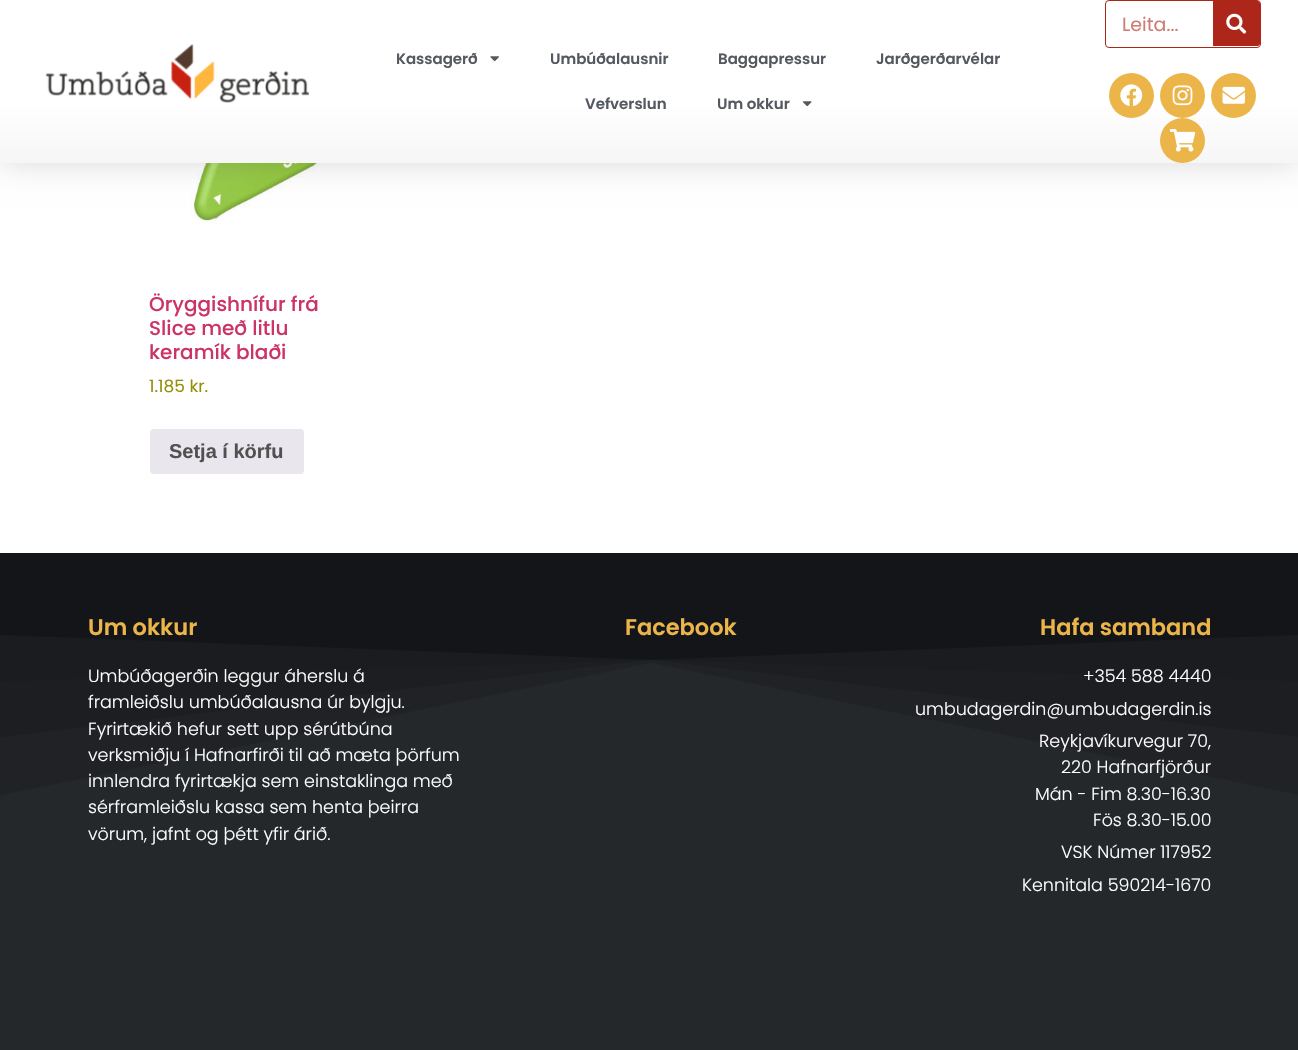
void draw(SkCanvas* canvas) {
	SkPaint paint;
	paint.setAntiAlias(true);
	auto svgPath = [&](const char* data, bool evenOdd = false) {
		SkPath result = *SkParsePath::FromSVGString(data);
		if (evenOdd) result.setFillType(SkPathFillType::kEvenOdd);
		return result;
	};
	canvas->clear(0xffffffff);
	canvas->drawImageRect(SkImages::DeferredFromEncodedData(SkData::MakeFromFileName("img9.png")), SkRect::MakeXYWH(191, 163, 141, 61), SkSamplingOptions());
	paint.setColor(0x26000000);
	paint.setMaskFilter(SkMaskFilter::MakeBlur(kNormal_SkBlurStyle, 15));
	canvas->drawRect(SkRect::MakeXYWH(0, 0, 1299, 163), paint);
	paint.setMaskFilter(nullptr);
	{
		const SkColor colors[] = {0xffffffff, 0xfff6f6f6};
		const float stops[] = {0.62, 1};
		const SkPoint ends[] = {{649, 0}, {649, 163}};
		paint.setShader(SkGradientShader::MakeLinear(ends, colors, stops, 2, SkTileMode::kClamp));
		paint.setAlpha(255);
	}
	canvas->drawRect(SkRect::MakeXYWH(0, 0, 1298, 163), paint);
	paint.setStroke(true);
	paint.setStrokeWidth(1);
	paint.setShader(nullptr);
	paint.setColor(0xffac2619);
	canvas->drawRoundRect(SkRect::MakeXYWH(1105.5, 0.5, 155, 47), 3.5, 3.5, paint);
	SkFont f1(fontMgr->matchFamilyStyle("Poppins", SkFontStyle::Normal()), 19);
	f1.setSubpixel(true);
	paint.setStroke(false);
	paint.setColor(0xffcd7d75);
	canvas->drawString("Leita...", 1122, 31, f1, paint);
	paint.setColor(0xffac2619);
	canvas->drawPath(svgPath("M1213 1H1257.5C1259 1 1260 2 1260 3.5V43.5C1260 45 1259 46 1257.5 46H1213Z"), paint);
	canvas->drawImageRect(SkImages::DeferredFromEncodedData(SkData::MakeFromFileName("img1.png")), SkRect::MakeXYWH(1226, 13, 21, 21), SkSamplingOptions());
	paint.setColor(0xffecb54a);
	canvas->drawCircle(1131.5, 95.5, 22.5, paint);
	canvas->drawImageRect(SkImages::DeferredFromEncodedData(SkData::MakeFromFileName("img2.png")), SkRect::MakeXYWH(1120, 84, 23, 22), SkSamplingOptions());
	canvas->drawCircle(1182.5, 95.5, 22.5, paint);
	canvas->drawImageRect(SkImages::DeferredFromEncodedData(SkData::MakeFromFileName("img3.png")), SkRect::MakeXYWH(1172, 85, 21, 21), SkSamplingOptions());
	canvas->drawCircle(1233.5, 95.5, 22.5, paint);
	canvas->drawImageRect(SkImages::DeferredFromEncodedData(SkData::MakeFromFileName("img4.png")), SkRect::MakeXYWH(1222, 86, 23, 18), SkSamplingOptions());
	canvas->drawCircle(1182.5, 140.5, 22.5, paint);
	canvas->drawImageRect(SkImages::DeferredFromEncodedData(SkData::MakeFromFileName("img5.png")), SkRect::MakeXYWH(1169, 129, 27, 23), SkSamplingOptions());
	canvas->drawImageRect(SkImages::DeferredFromEncodedData(SkData::MakeFromFileName("img6.png")), SkRect::MakeXYWH(45, 44, 264, 59), SkSamplingOptions());
	SkFont f2(fontMgr->matchFamilyStyle("Poppins", SkFontStyle(600, SkFontStyle::kNormal_Width, SkFontStyle::kUpright_Slant)), 15);
	f2.setSubpixel(true);
	paint.setColor(0xff54595f);
	canvas->drawString("Kassagerð", 396, 64, f2, paint);
	canvas->drawImageRect(SkImages::DeferredFromEncodedData(SkData::MakeFromFileName("img7.png")), SkRect::MakeXYWH(490, 56, 9, 6), SkSamplingOptions());
	canvas->drawString("Umbúðalausnir", 550, 64, f2, paint);
	canvas->drawString("Baggapressur", 718, 64, f2, paint);
	canvas->drawString("Jarðgerðarvélar", 876, 64, f2, paint);
	canvas->drawString("Vefverslun", 585, 109, f2, paint);
	canvas->drawString("Um okkur", 717, 109, f2, paint);
	canvas->drawImageRect(SkImages::DeferredFromEncodedData(SkData::MakeFromFileName("img8.png")), SkRect::MakeXYWH(802, 101, 10, 6), SkSamplingOptions());
	SkFont f3(fontMgr->matchFamilyStyle("Poppins", SkFontStyle(500, SkFontStyle::kNormal_Width, SkFontStyle::kUpright_Slant)), 20);
	f3.setSubpixel(true);
	paint.setColor(0xffcc3366);
	canvas->drawString("Öryggishnífur frá", 149, 311, f3, paint);
	canvas->drawString("Slice með litlu", 149, 335, f3, paint);
	canvas->drawString("keramík blaði", 149, 359, f3, paint);
	SkFont f4(fontMgr->matchFamilyStyle("Poppins", SkFontStyle::Normal()), 17);
	f4.setSubpixel(true);
	paint.setColor(0xff958e09);
	canvas->drawString("1.185 kr.", 149, 392, f4, paint);
	paint.setColor(0xffe9e6ed);
	canvas->drawRoundRect(SkRect::MakeXYWH(150, 429, 154, 45), 4, 4, paint);
	SkFont f5(fontMgr->matchFamilyStyle("Liberation Sans", SkFontStyle::Bold()), 20);
	f5.setSubpixel(true);
	paint.setColor(0xff515151);
	canvas->drawString("Setja í körfu", 169, 458, f5, paint);
	paint.setColor(0xff25282b);
	canvas->drawRect(SkRect::MakeXYWH(0, 634, 1298, 416), paint);
	canvas->save();
	canvas->clipRect(SkRect::MakeXYWH(0, 553, 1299, 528));
	paint.setColor(0x54141519);
	canvas->drawPath(svgPath("M-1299 552V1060L651 663L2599 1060V552Z"), paint);
	canvas->drawPath(svgPath("M-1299 552V892L651 660L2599 892V552Z"), paint);
	canvas->drawPath(svgPath("M-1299 552V725L651 660L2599 725V552Z"), paint);
	paint.setColor(0xff141519);
	canvas->drawPath(svgPath("M-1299 552V585L651 660L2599 585V552Z"), paint);
	canvas->restore();
	SkFont f6(fontMgr->matchFamilyStyle("Poppins", SkFontStyle(600, SkFontStyle::kNormal_Width, SkFontStyle::kUpright_Slant)), 22.5);
	f6.setSubpixel(true);
	paint.setColor(0xffecb54a);
	canvas->drawString("Um okkur", 88, 635, f6, paint);
	SkFont f7(fontMgr->matchFamilyStyle("Poppins", SkFontStyle(300, SkFontStyle::kNormal_Width, SkFontStyle::kUpright_Slant)), 17.5);
	f7.setSubpixel(true);
	paint.setColor(0xffffffff);
	canvas->drawString("Umbúðagerðin leggur áherslu á", 88, 682, f7, paint);
	canvas->drawString("framleiðslu umbúðalausna úr bylgju.", 88, 708, f7, paint);
	canvas->drawString("Fyrirtækið hefur sett upp sérútbúna", 88, 735, f7, paint);
	canvas->drawString("verksmiðju í Hafnarfirði til að mæta þörfum", 88, 761, f7, paint);
	canvas->drawString("innlendra fyrirtækja sem einstaklinga með", 88, 787, f7, paint);
	canvas->drawString("sérframleiðslu kassa sem henta þeirra", 88, 813, f7, paint);
	canvas->drawString("vörum, jafnt og þétt yfir árið.", 88, 840, f7, paint);
	paint.setColor(0xffecb54a);
	canvas->drawString("Facebook", 625, 635, f6, paint);
	canvas->drawString("Hafa samband", 1040, 635, f6, paint);
	paint.setColor(0xffffffff);
	canvas->drawString("+354 588 4440", 1083, 682, f7, paint);
	canvas->drawString("umbudagerdin@umbudagerdin.is", 915, 715, f7, paint);
	canvas->drawString("Reykjavíkurvegur 70,", 1039, 747, f7, paint);
	canvas->drawString("220 Hafnarfjörður", 1061, 773, f7, paint);
	canvas->drawString("Mán - Fim 8.30-16.30", 1035, 800, f7, paint);
	canvas->drawString("Fös 8.30-15.00", 1093, 826, f7, paint);
	canvas->drawString("VSK Númer 117952", 1061, 858, f7, paint);
	canvas->drawString("Kennitala 590214-1670", 1022, 891, f7, paint);
}
